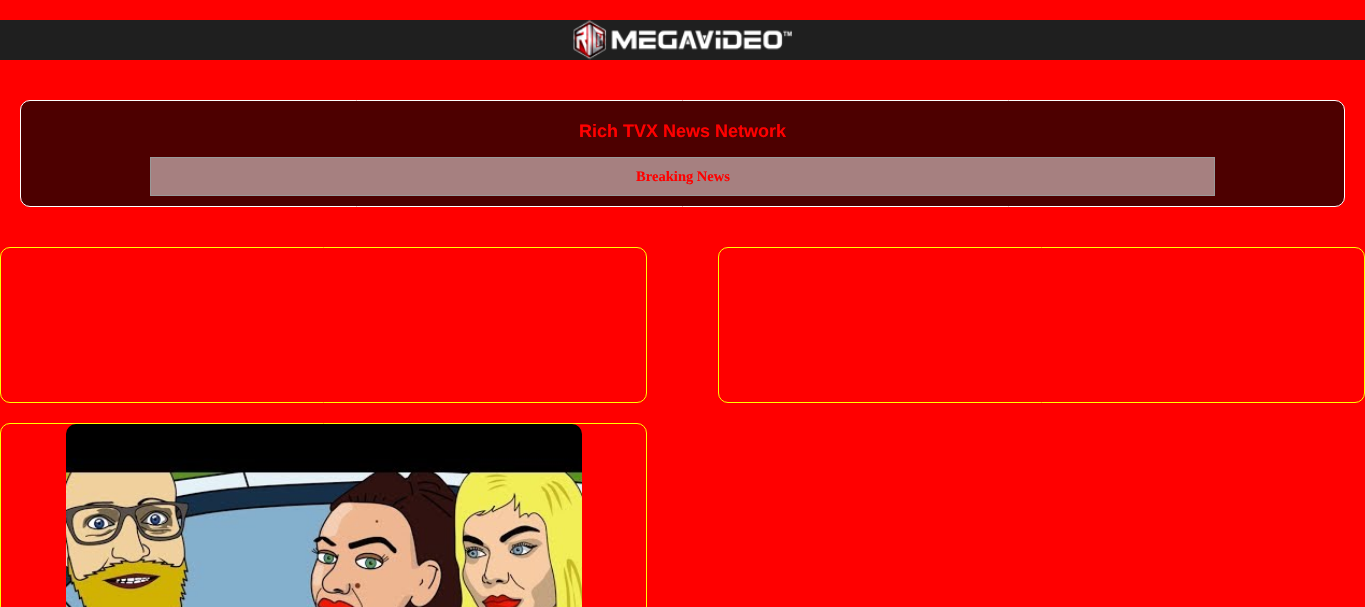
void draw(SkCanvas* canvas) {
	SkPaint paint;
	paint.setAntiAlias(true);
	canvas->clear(0xffff0000);
	paint.setColor(0xff1f1f1f);
	canvas->drawRect(SkRect::MakeXYWH(0, 20, 1365, 40), paint);
	canvas->drawImageRect(SkImages::DeferredFromEncodedData(SkData::MakeFromFileName("img1.png")), SkRect::MakeXYWH(573, 20, 219, 40), SkSamplingOptions());
	paint.setColor(0xff4d0000);
	canvas->drawRoundRect(SkRect::MakeXYWH(20.5, 100.5, 1324, 106), 9.5, 9.5, paint);
	paint.setStroke(true);
	paint.setStrokeWidth(1);
	paint.setColor(0xffffffff);
	canvas->drawRoundRect(SkRect::MakeXYWH(20.5, 100.5, 1324, 106), 9.5, 9.5, paint);
	SkFont f1(fontMgr->matchFamilyStyle("Liberation Sans", SkFontStyle::Bold()), 18);
	f1.setSubpixel(true);
	paint.setStroke(false);
	paint.setColor(0xffff0000);
	canvas->drawString("Rich TVX News Network", 579, 137, f1, paint);
	paint.setColor(0xffa68080);
	canvas->drawRect(SkRect::MakeXYWH(150.5, 157.5, 1064, 38), paint);
	paint.setStroke(true);
	paint.setColor(0xff999999);
	canvas->drawRect(SkRect::MakeXYWH(150.5, 157.5, 1064, 38), paint);
	SkFont f2(fontMgr->matchFamilyStyle("Liberation Serif", SkFontStyle::Bold()), 14.5);
	f2.setSubpixel(true);
	paint.setStroke(false);
	paint.setColor(0xffff0000);
	canvas->drawString("Breaking News", 636, 181, f2, paint);
	paint.setStroke(true);
	paint.setColor(0xffffff00);
	canvas->drawRoundRect(SkRect::MakeXYWH(0.5, 247.5, 646, 155), 9.5, 9.5, paint);
	canvas->drawRoundRect(SkRect::MakeXYWH(718.5, 247.5, 646, 155), 9.5, 9.5, paint);
	canvas->drawRoundRect(SkRect::MakeXYWH(0.5, 423.5, 646, 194), 9.5, 9.5, paint);
	canvas->drawImageRect(SkImages::DeferredFromEncodedData(SkData::MakeFromFileName("img2.png")), SkRect::MakeXYWH(66, 424, 516, 183), SkSamplingOptions());
}
